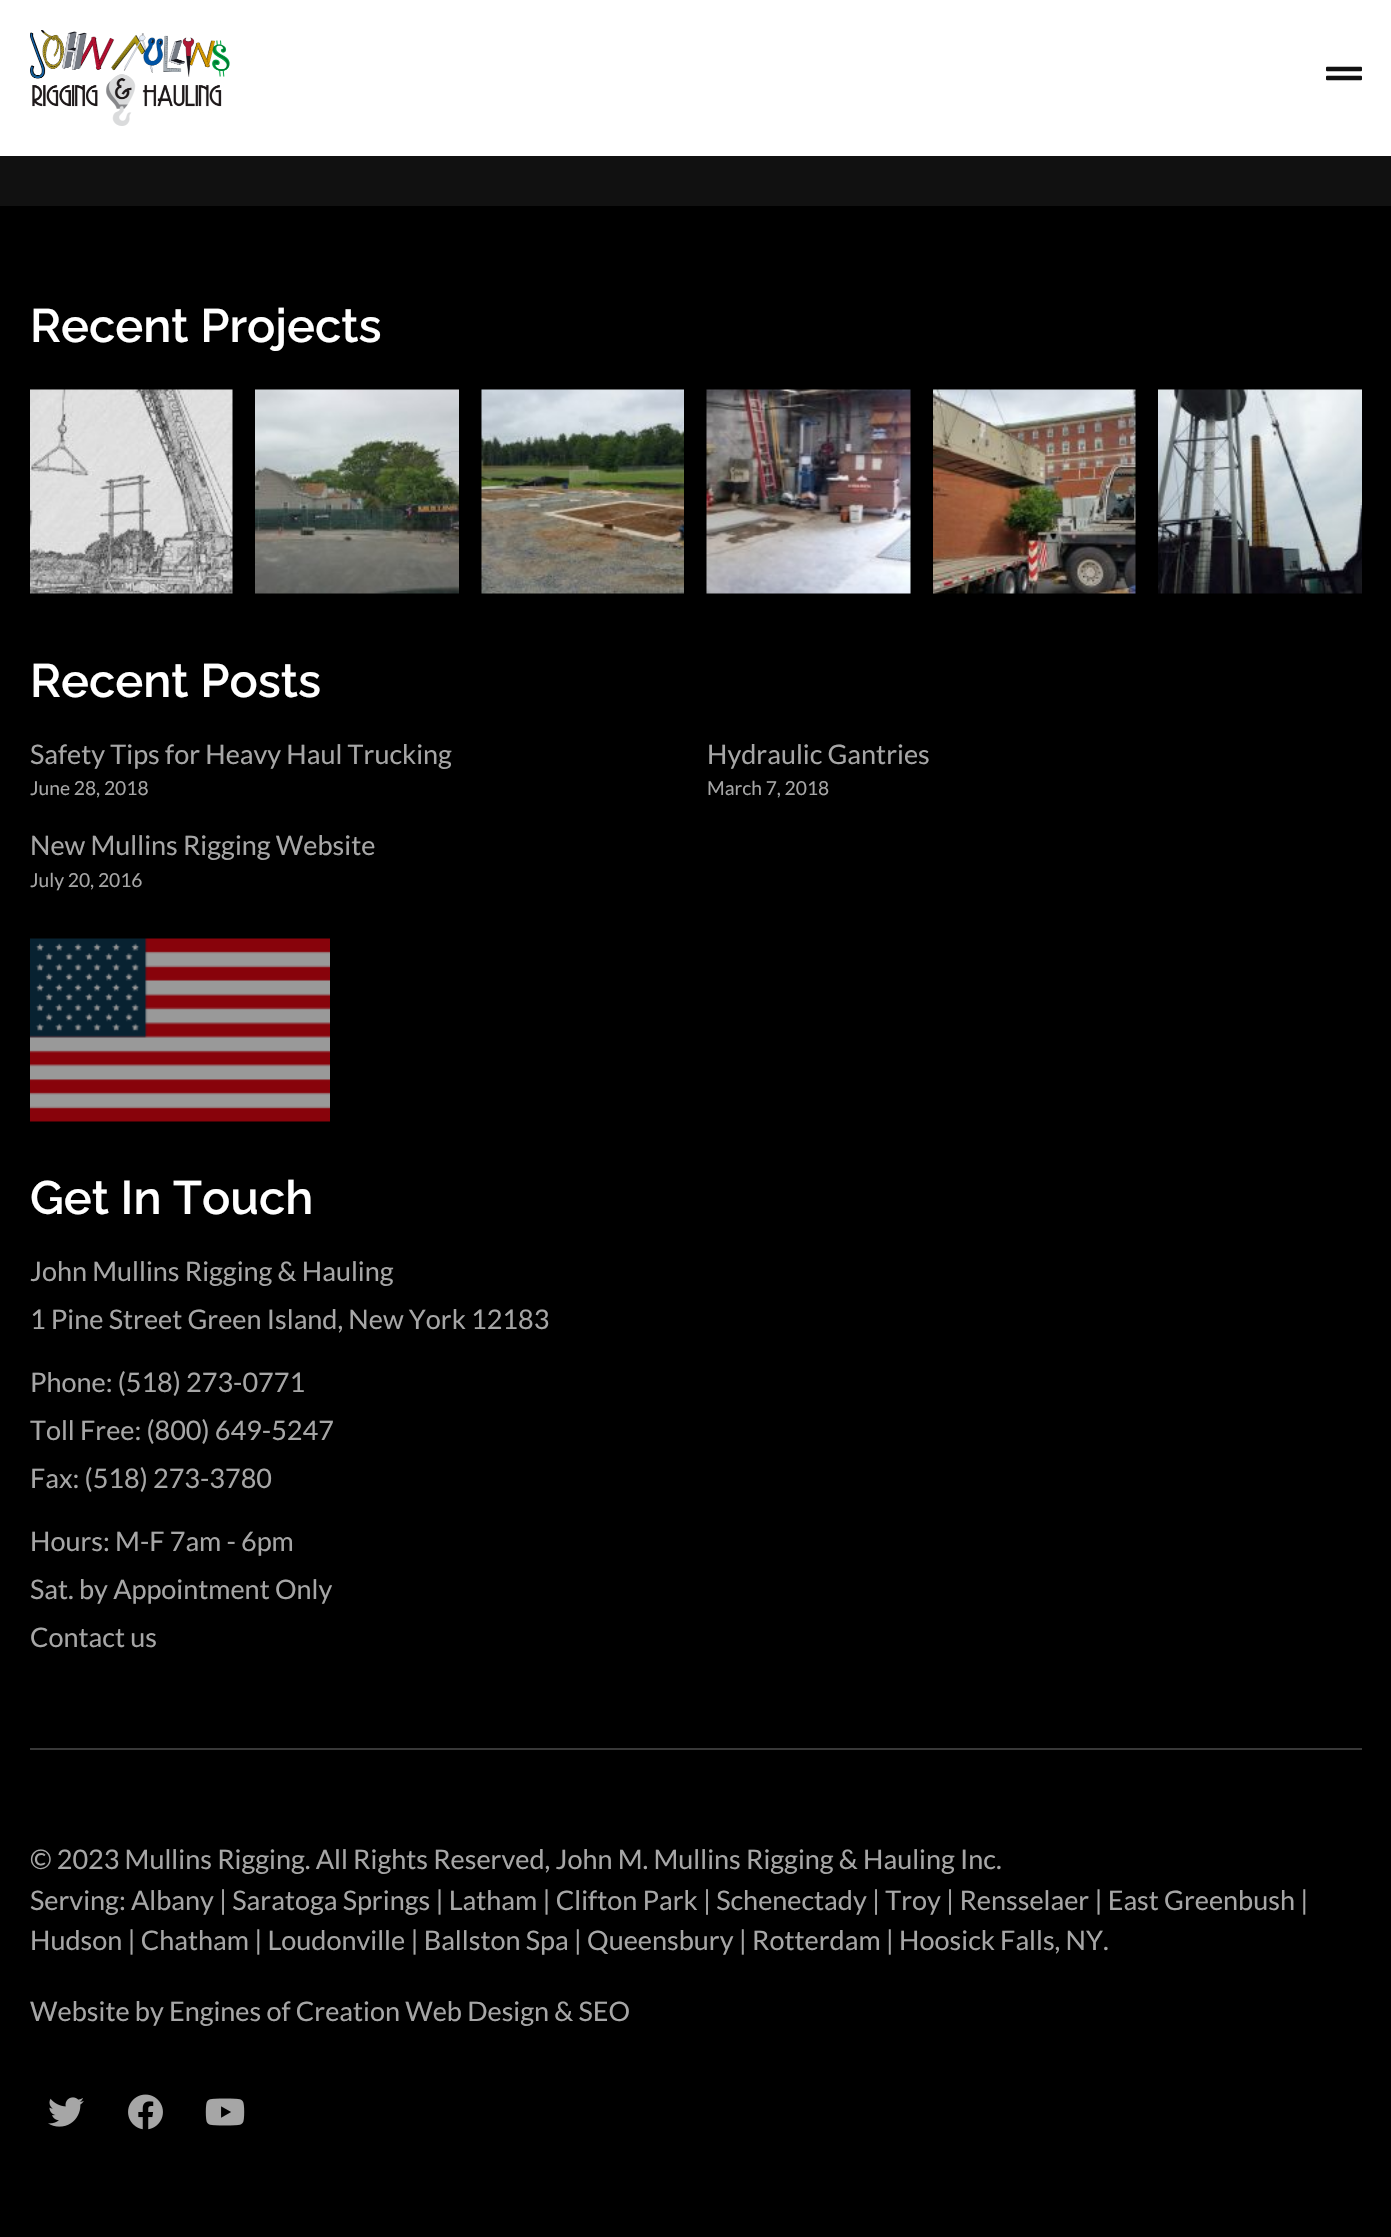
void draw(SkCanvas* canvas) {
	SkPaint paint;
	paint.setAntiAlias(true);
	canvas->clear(0xff000000);
	paint.setColor(0xffffffff);
	canvas->drawRect(SkRect::MakeXYWH(0, 0, 1391, 156), paint);
	canvas->drawImageRect(SkImages::DeferredFromEncodedData(SkData::MakeFromFileName("img1.png")), SkRect::MakeXYWH(30, 30, 200, 96), SkSamplingOptions());
	canvas->drawImageRect(SkImages::DeferredFromEncodedData(SkData::MakeFromFileName("img2.png")), SkRect::MakeXYWH(1326, 66, 36, 15), SkSamplingOptions());
	paint.setColor(0xff111111);
	canvas->drawRect(SkRect::MakeXYWH(0, 156, 1391, 50), paint);
	SkFont f1(fontMgr->matchFamilyStyle("Raleway", SkFontStyle(600, SkFontStyle::kNormal_Width, SkFontStyle::kUpright_Slant)), 47);
	f1.setSubpixel(true);
	paint.setColor(0xffffffff);
	canvas->drawString("Recent Projects", 30, 342, f1, paint);
	canvas->drawImageRect(SkImages::DeferredFromEncodedData(SkData::MakeFromFileName("img3.png")), SkRect::MakeXYWH(30, 389, 203, 205), SkSamplingOptions());
	canvas->drawImageRect(SkImages::DeferredFromEncodedData(SkData::MakeFromFileName("img4.png")), SkRect::MakeXYWH(255, 389, 204, 205), SkSamplingOptions());
	canvas->drawImageRect(SkImages::DeferredFromEncodedData(SkData::MakeFromFileName("img5.png")), SkRect::MakeXYWH(481, 389, 203, 205), SkSamplingOptions());
	canvas->drawImageRect(SkImages::DeferredFromEncodedData(SkData::MakeFromFileName("img6.png")), SkRect::MakeXYWH(706, 389, 205, 205), SkSamplingOptions());
	canvas->drawImageRect(SkImages::DeferredFromEncodedData(SkData::MakeFromFileName("img7.png")), SkRect::MakeXYWH(933, 389, 203, 205), SkSamplingOptions());
	canvas->drawImageRect(SkImages::DeferredFromEncodedData(SkData::MakeFromFileName("img8.png")), SkRect::MakeXYWH(1158, 389, 204, 205), SkSamplingOptions());
	canvas->drawString("Recent Posts", 30, 697, f1, paint);
	SkFont f2(fontMgr->matchFamilyStyle("Lato", SkFontStyle::Normal()), 27);
	f2.setSubpixel(true);
	paint.setColor(0xffa6a6a6);
	canvas->drawString("Safety Tips for Heavy Haul Trucking", 30, 764, f2, paint);
	SkFont f3(fontMgr->matchFamilyStyle("Lato", SkFontStyle::Normal()), 19.25);
	f3.setSubpixel(true);
	canvas->drawString("June 28, 2018", 30, 795, f3, paint);
	canvas->drawString("Hydraulic Gantries", 707, 764, f2, paint);
	canvas->drawString("March 7, 2018", 707, 795, f3, paint);
	canvas->drawString("New Mullins Rigging Website", 30, 855, f2, paint);
	canvas->drawString("July 20, 2016", 30, 887, f3, paint);
	canvas->drawImageRect(SkImages::DeferredFromEncodedData(SkData::MakeFromFileName("img9.png")), SkRect::MakeXYWH(30, 938, 300, 184), SkSamplingOptions());
	paint.setColor(0xffffffff);
	canvas->drawString("Get In Touch", 30, 1214, f1, paint);
	paint.setColor(0xffa6a6a6);
	canvas->drawString("John Mullins Rigging & Hauling", 30, 1281, f2, paint);
	canvas->drawString("1 Pine Street Green Island, New York 12183", 30, 1329, f2, paint);
	canvas->drawString("Phone: (518) 273-0771", 30, 1392, f2, paint);
	canvas->drawString("Toll Free: (800) 649-5247", 30, 1440, f2, paint);
	canvas->drawString("Fax: (518) 273-3780", 30, 1488, f2, paint);
	canvas->drawString("Hours: M-F 7am - 6pm", 30, 1551, f2, paint);
	canvas->drawString("Sat. by Appointment Only", 30, 1599, f2, paint);
	canvas->drawString("Contact us", 30, 1647, f2, paint);
	paint.setColor(0xff383838);
	canvas->drawRect(SkRect::MakeXYWH(30, 1748, 1332, 2), paint);
	paint.setColor(0xffa6a6a6);
	canvas->drawString("© 2023 Mullins Rigging. All Rights Reserved, John M. Mullins Rigging & Hauling Inc.", 30, 1869, f2, paint);
	canvas->drawString("Serving: Albany | Saratoga Springs | Latham | Clifton Park | Schenectady | Troy | Rensselaer | East Greenbush |", 30, 1910, f2, paint);
	canvas->drawString("Hudson | Chatham | Loudonville | Ballston Spa | Queensbury | Rotterdam | Hoosick Falls, NY.", 30, 1950, f2, paint);
	canvas->drawString("Website by Engines of Creation Web Design & SEO", 30, 2021, f2, paint);
	canvas->drawImageRect(SkImages::DeferredFromEncodedData(SkData::MakeFromFileName("img10.png")), SkRect::MakeXYWH(48, 2097, 36, 30), SkSamplingOptions());
	canvas->drawImageRect(SkImages::DeferredFromEncodedData(SkData::MakeFromFileName("img11.png")), SkRect::MakeXYWH(128, 2094, 35, 36), SkSamplingOptions());
	canvas->drawImageRect(SkImages::DeferredFromEncodedData(SkData::MakeFromFileName("img12.png")), SkRect::MakeXYWH(205, 2098, 40, 28), SkSamplingOptions());
}
